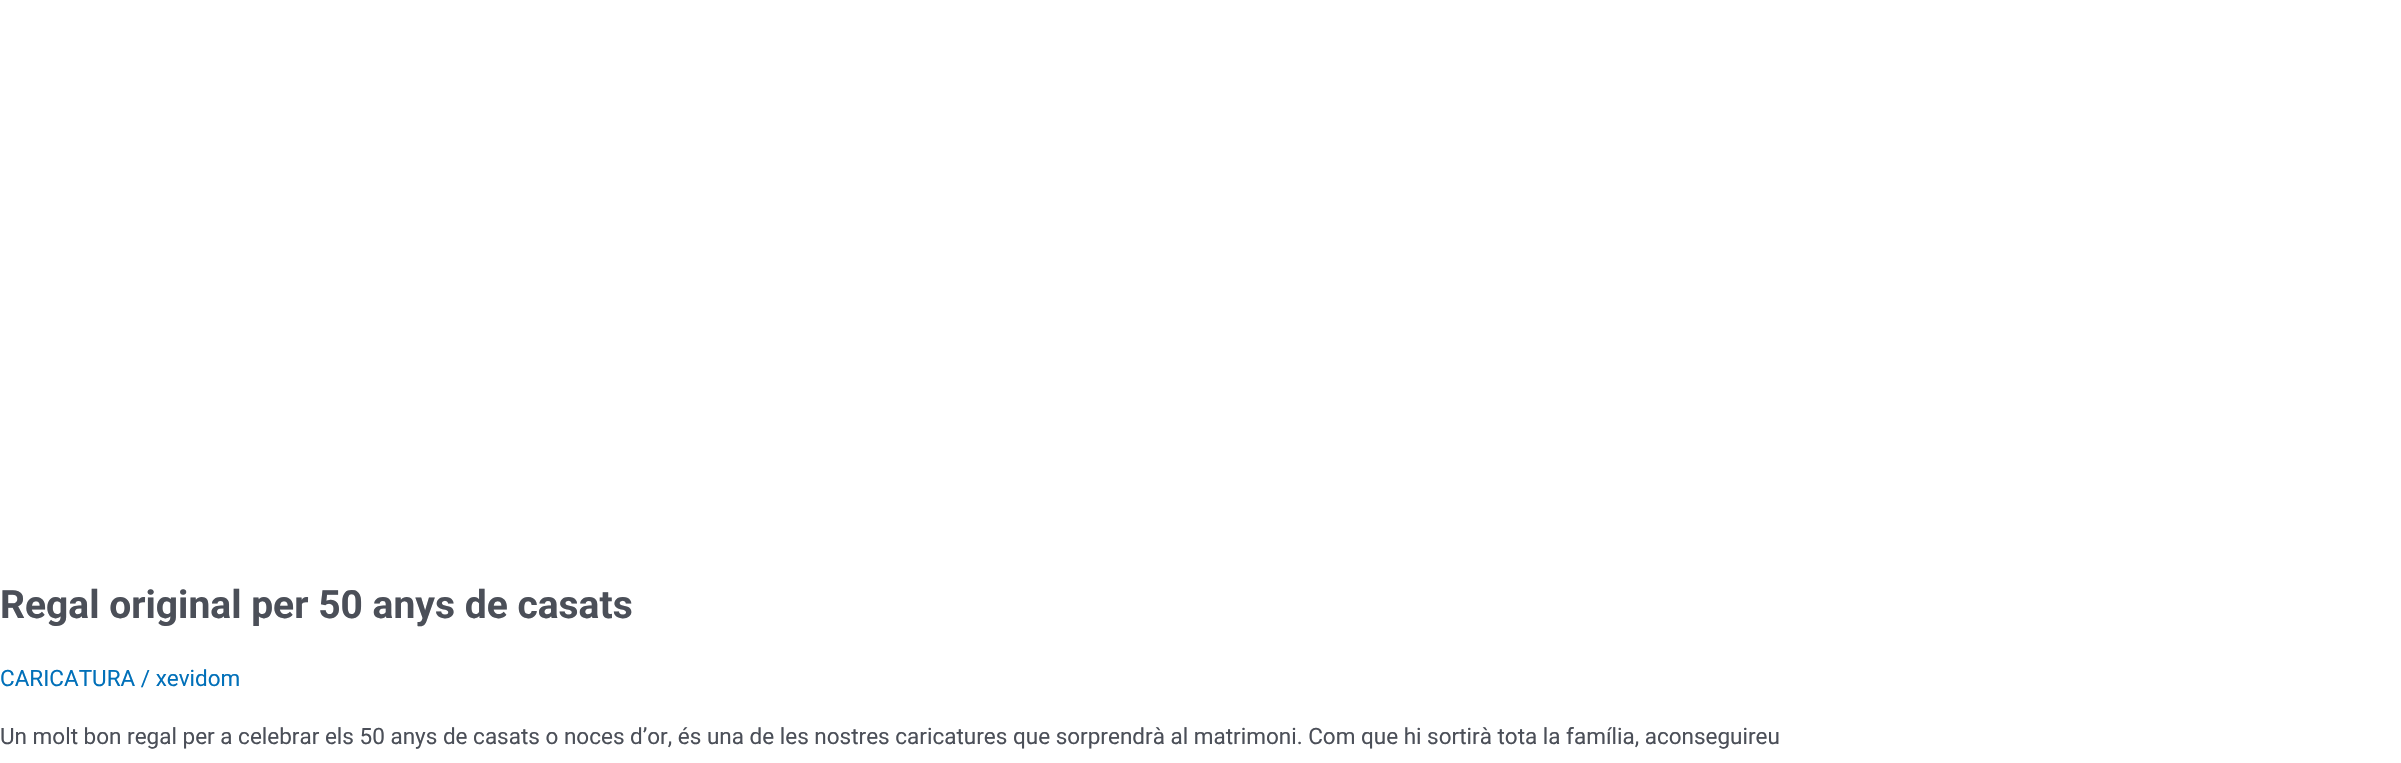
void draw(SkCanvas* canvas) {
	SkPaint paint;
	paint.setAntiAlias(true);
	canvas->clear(0xffffffff);
	SkFont f1(fontMgr->matchFamilyStyle("Roboto", SkFontStyle::Bold()), 39);
	f1.setSubpixel(true);
	paint.setColor(0xff4b4f58);
	canvas->drawString("Regal original per 50 anys de casats", 0, 618, f1, paint);
	SkFont f2(fontMgr->matchFamilyStyle("Roboto", SkFontStyle::Normal()), 22.5);
	f2.setSubpixel(true);
	paint.setColor(0xff0170b9);
	canvas->drawString("CARICATURA / xevidom", 0, 686, f2, paint);
	paint.setColor(0xff4b4f58);
	canvas->drawString("Un molt bon regal per a celebrar els 50 anys de casats o noces d’or, és una de les nostres caricatures que sorprendrà al matrimoni. Com que hi sortirà tota la família, aconseguireu", 0, 744, f2, paint);
}
